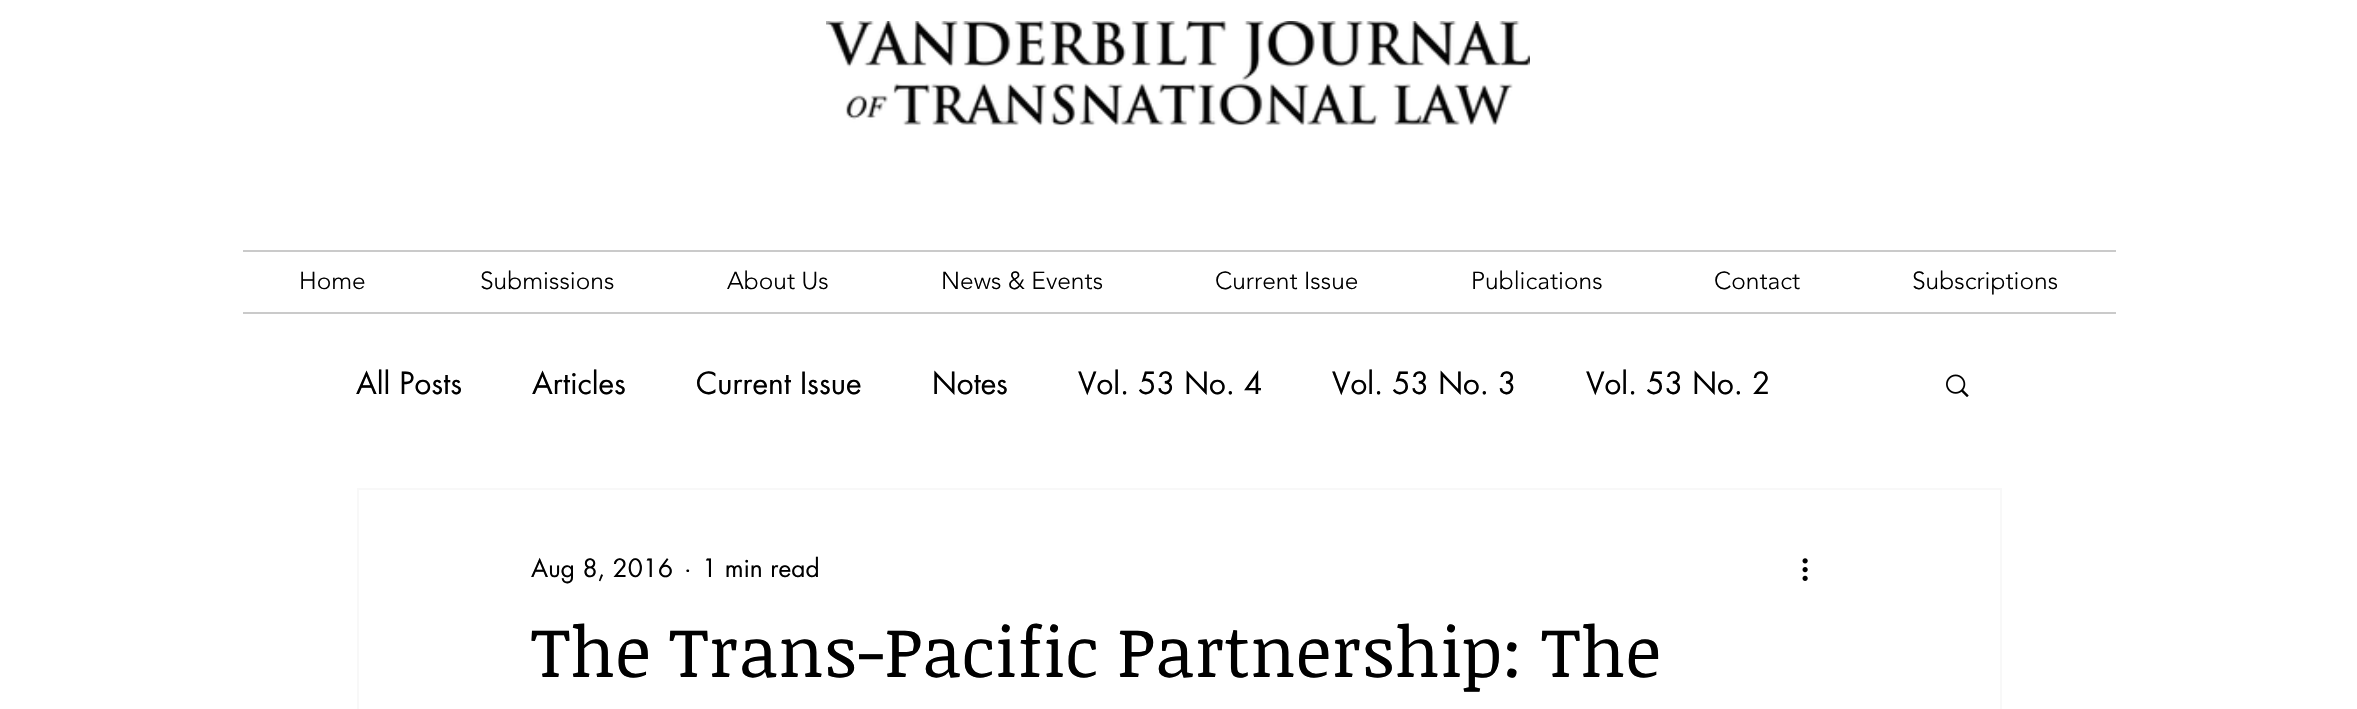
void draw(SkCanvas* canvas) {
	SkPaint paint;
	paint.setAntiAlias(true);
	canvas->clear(0xffffffff);
	canvas->drawImageRect(SkImages::DeferredFromEncodedData(SkData::MakeFromFileName("img1.png")), SkRect::MakeXYWH(826, 21, 704, 105), SkSamplingOptions());
	paint.setColor(0xffcacaca);
	canvas->drawRect(SkRect::MakeXYWH(243, 250, 1873, 2), paint);
	canvas->drawRect(SkRect::MakeXYWH(243, 312, 1873, 2), paint);
	SkFont f1(fontMgr->matchFamilyStyle("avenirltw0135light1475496", SkFontStyle(300, SkFontStyle::kNormal_Width, SkFontStyle::kUpright_Slant)), 24.5);
	f1.setSubpixel(true);
	paint.setColor(0xff000000);
	canvas->drawString("Home", 299, 289, f1, paint);
	canvas->drawString("Submissions", 480, 289, f1, paint);
	canvas->drawString("About Us", 727, 289, f1, paint);
	canvas->drawString("News & Events", 941, 289, f1, paint);
	canvas->drawString("Current Issue", 1215, 289, f1, paint);
	canvas->drawString("Publications", 1471, 289, f1, paint);
	canvas->drawString("Contact", 1714, 289, f1, paint);
	canvas->drawString("Subscriptions", 1912, 289, f1, paint);
	SkFont f2(fontMgr->matchFamilyStyle("futura", SkFontStyle::Normal()), 29.75);
	f2.setSubpixel(true);
	canvas->drawString("All Posts", 356, 394, f2, paint);
	canvas->drawString("Articles", 532, 394, f2, paint);
	canvas->drawString("Current Issue", 696, 394, f2, paint);
	canvas->drawString("Notes", 932, 394, f2, paint);
	canvas->drawString("Vol. 53 No. 4", 1078, 394, f2, paint);
	canvas->drawString("Vol. 53 No. 3", 1332, 394, f2, paint);
	canvas->drawString("Vol. 53 No. 2", 1586, 394, f2, paint);
	canvas->drawImageRect(SkImages::DeferredFromEncodedData(SkData::MakeFromFileName("img2.png")), SkRect::MakeXYWH(1946, 374, 23, 23), SkSamplingOptions());
	paint.setStroke(true);
	paint.setStrokeWidth(2);
	paint.setColor(0xfff8f8f8);
	canvas->drawRect(SkRect::MakeXYWH(358, 489, 1643, 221), paint);
	SkFont f3(fontMgr->matchFamilyStyle("futura", SkFontStyle::Normal()), 24.5);
	f3.setSubpixel(true);
	paint.setStroke(false);
	paint.setColor(0xff000000);
	canvas->drawString("Aug 8, 2016", 531, 577, f3, paint);
	canvas->drawString("·", 684, 577, f3, paint);
	canvas->drawString("1 min read", 702, 577, f3, paint);
	canvas->drawImageRect(SkImages::DeferredFromEncodedData(SkData::MakeFromFileName("img3.png")), SkRect::MakeXYWH(1802, 558, 6, 23), SkSamplingOptions());
	SkFont f4(fontMgr->matchFamilyStyle("Noticia Text", SkFontStyle::Normal()), 70);
	f4.setSubpixel(true);
	canvas->drawString("The Trans-Pacific Partnership: The", 531, 677, f4, paint);
}
